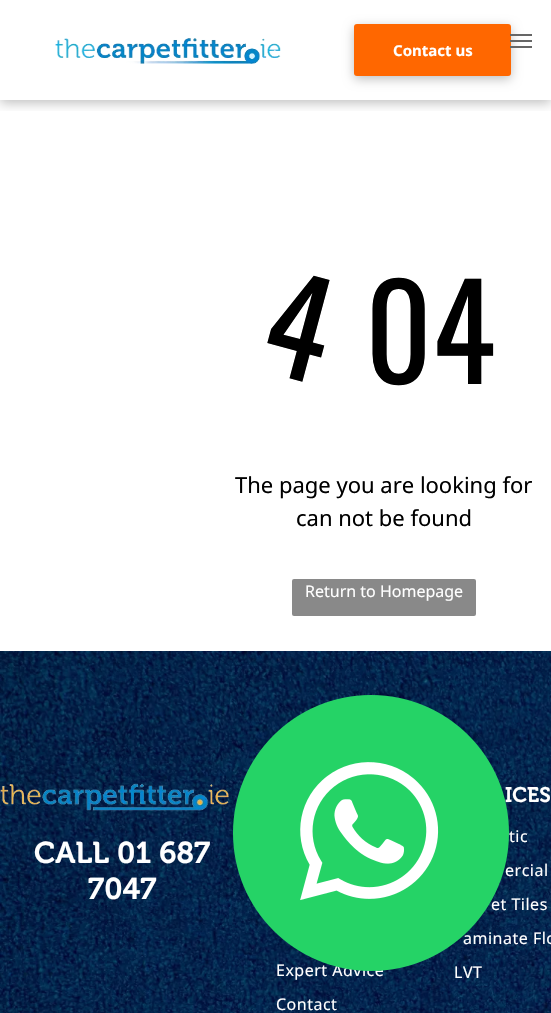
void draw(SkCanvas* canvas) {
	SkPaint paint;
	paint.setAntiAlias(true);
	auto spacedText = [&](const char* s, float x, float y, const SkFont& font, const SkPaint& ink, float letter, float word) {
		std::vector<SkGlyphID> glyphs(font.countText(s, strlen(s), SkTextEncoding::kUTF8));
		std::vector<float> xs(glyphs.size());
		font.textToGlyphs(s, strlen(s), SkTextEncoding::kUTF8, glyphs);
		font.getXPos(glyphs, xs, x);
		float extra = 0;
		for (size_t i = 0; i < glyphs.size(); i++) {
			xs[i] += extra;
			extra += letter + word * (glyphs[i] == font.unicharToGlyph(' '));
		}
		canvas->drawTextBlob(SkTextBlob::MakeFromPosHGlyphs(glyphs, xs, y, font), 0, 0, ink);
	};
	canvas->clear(0xffffffff);
	canvas->save();
	canvas->clipRect(SkRect::MakeXYWH(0, 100, 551, 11));
	paint.setColor(0x40000000);
	paint.setMaskFilter(SkMaskFilter::MakeBlur(kNormal_SkBlurStyle, 5.5));
	canvas->drawRect(SkRect::MakeXYWH(0, 3, 551, 100), paint);
	paint.setMaskFilter(nullptr);
	canvas->restore();
	paint.setMaskFilter(SkMaskFilter::MakeBlur(kNormal_SkBlurStyle, 5.5));
	canvas->drawRoundRect(SkRect::MakeXYWH(354, 27, 157, 52), 3, 3, paint);
	paint.setMaskFilter(nullptr);
	paint.setColor(0xffff6700);
	canvas->drawRoundRect(SkRect::MakeXYWH(354, 24, 157, 52), 3, 3, paint);
	paint.setColor(0xff666666);
	canvas->drawRect(SkRect::MakeXYWH(510, 34, 22, 2), paint);
	canvas->drawRect(SkRect::MakeXYWH(510, 40, 22, 2), paint);
	canvas->drawRect(SkRect::MakeXYWH(510, 46, 22, 2), paint);
	canvas->drawImageRect(SkImages::DeferredFromEncodedData(SkData::MakeFromFileName("img1.png")), SkRect::MakeXYWH(55, 38, 226, 26), SkSamplingOptions());
	SkFont f1(fontMgr->matchFamilyStyle("Noto Sans", SkFontStyle::Bold()), 15);
	f1.setSubpixel(true);
	paint.setColor(0xffffffff);
	canvas->drawString("Contact us", 393, 56, f1, paint);
	SkFont f2(fontMgr->matchFamilyStyle("Oswald", SkFontStyle::Normal()), 130);
	f2.setSubpixel(true);
	paint.setColor(0xff000000);
	canvas->save();
	canvas->rotate(15, 255, 369);
	canvas->drawString("4", 255, 369, f2, paint);
	canvas->restore();
	canvas->drawString("04", 365, 384, f2, paint);
	SkFont f3(fontMgr->matchFamilyStyle("Noto Sans", SkFontStyle::Normal()), 22);
	f3.setSubpixel(true);
	canvas->drawString("The page you are looking for", 235, 493, f3, paint);
	canvas->drawString("can not be found", 296, 526, f3, paint);
	paint.setColor(0xff898989);
	canvas->drawRoundRect(SkRect::MakeXYWH(292, 579, 184, 37), 2, 2, paint);
	SkFont f4(fontMgr->matchFamilyStyle("Noto Sans", SkFontStyle::Normal()), 16);
	f4.setSubpixel(true);
	paint.setColor(0xffffffff);
	canvas->drawString("Return to Homepage", 305, 597, f4, paint);
	canvas->drawImageRect(SkImages::DeferredFromEncodedData(SkData::MakeFromFileName("img3.png")), SkRect::MakeXYWH(0, 651, 551, 362), SkSamplingOptions());
	SkFont f5(fontMgr->matchFamilyStyle("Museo", SkFontStyle(600, SkFontStyle::kNormal_Width, SkFontStyle::kUpright_Slant)), 21);
	f5.setSubpixel(true);
	canvas->drawString("ICES", 505, 802, f5, paint);
	spacedText("ercial", 505, 876, f4, paint, 0.5, 0);
	spacedText("et Tiles", 491, 910, f4, paint, 0.5, 0);
	spacedText("aminate Flo", 463, 944, f4, paint, 0.5, 0);
	spacedText("LVT", 454, 978, f4, paint, 0.5, 0);
	spacedText("Expert Advice", 276, 976, f4, paint, 0.5, 0);
	canvas->drawImageRect(SkImages::DeferredFromEncodedData(SkData::MakeFromFileName("img2.png")), SkRect::MakeXYWH(233, 695, 276, 276), SkSamplingOptions());
	canvas->drawImageRect(SkImages::DeferredFromEncodedData(SkData::MakeFromFileName("img4.png")), SkRect::MakeXYWH(0, 783, 229, 28), SkSamplingOptions());
	SkFont f6(fontMgr->matchFamilyStyle("Museo", SkFontStyle(600, SkFontStyle::kNormal_Width, SkFontStyle::kUpright_Slant)), 30);
	f6.setSubpixel(true);
	canvas->drawString("CALL 01 687", 34, 863, f6, paint);
	canvas->drawString("7047", 88, 899, f6, paint);
	spacedText("tic", 509, 842, f4, paint, 0.5, 0);
	spacedText("Contact", 276, 1010, f4, paint, 0.5, 0);
}
